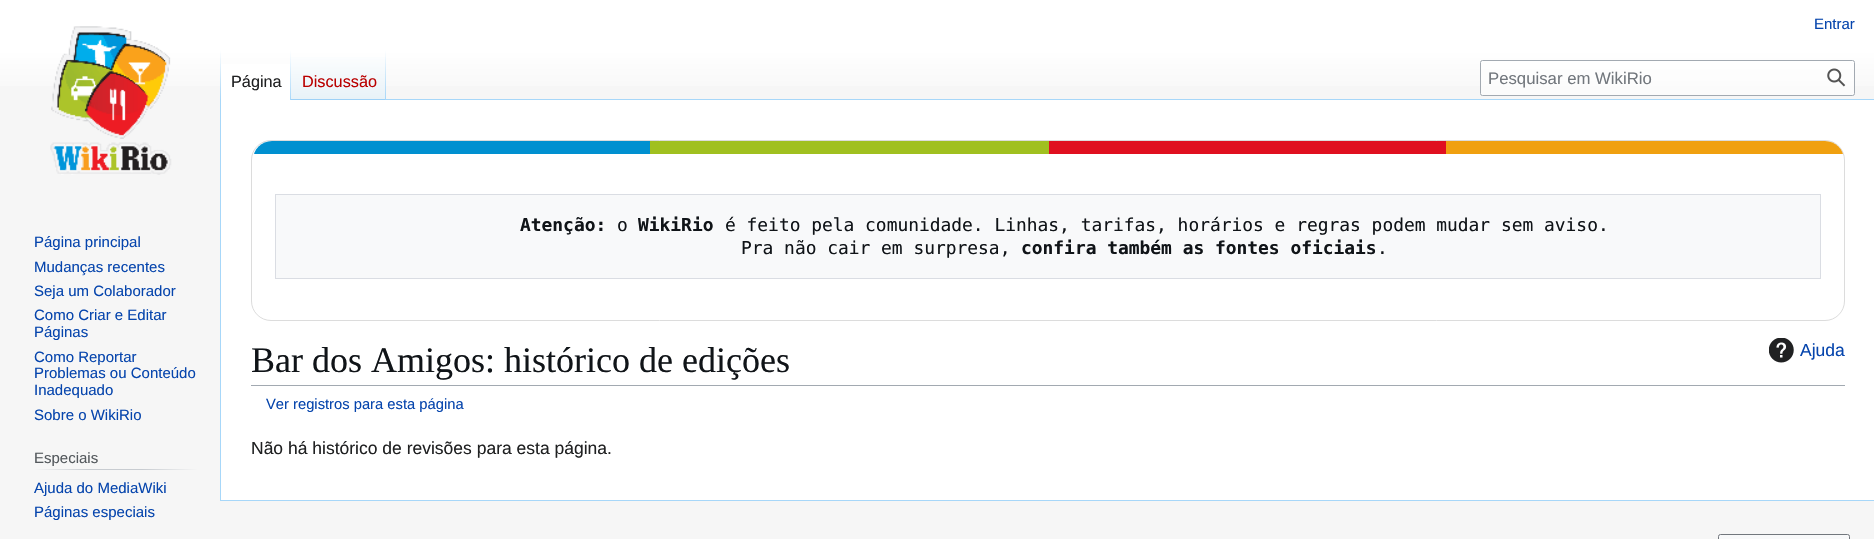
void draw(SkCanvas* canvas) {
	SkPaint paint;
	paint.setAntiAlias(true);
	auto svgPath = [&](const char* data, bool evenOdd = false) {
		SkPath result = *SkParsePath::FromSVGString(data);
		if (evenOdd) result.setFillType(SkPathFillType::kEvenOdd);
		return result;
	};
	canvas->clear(0xfff6f6f6);
	{
		const SkColor colors[] = {0xffffffff, 0xfff6f6f6};
		const float stops[] = {0.5, 1};
		const SkPoint ends[] = {{938, 0}, {938, 100}};
		paint.setShader(SkGradientShader::MakeLinear(ends, colors, stops, 2, SkTileMode::kClamp));
		paint.setAlpha(255);
	}
	canvas->drawRect(SkRect::MakeXYWH(0, 0, 1874, 86), paint);
	SkFont f1(fontMgr->matchFamilyStyle("Liberation Sans", SkFontStyle::Normal()), 15);
	f1.setSubpixel(true);
	paint.setShader(nullptr);
	paint.setColor(0xff0645ad);
	canvas->drawString("Entrar", 1814, 29, f1, paint);
	paint.setColor(0xffa7d7f9);
	canvas->drawRect(SkRect::MakeXYWH(220, 500, 1654, 1), paint);
	canvas->drawRect(SkRect::MakeXYWH(220, 99, 1, 402), paint);
	{
		const SkColor colors[] = {0x00a7d7f9, 0xffa7d7f9};
		const float stops[] = {0, 1};
		const SkPoint ends[] = {{221, 50}, {221, 100}};
		paint.setShader(SkGradientShader::MakeLinear(ends, colors, stops, 2, SkTileMode::kClamp));
		paint.setAlpha(255);
	}
	canvas->drawRect(SkRect::MakeXYWH(220, 50, 1, 50), paint);
	paint.setShader(nullptr);
	paint.setColor(0xffffffff);
	canvas->drawRect(SkRect::MakeXYWH(221, 64, 69, 36), paint);
	{
		const SkColor colors[] = {0xffffffff, 0xffa7d7f9};
		const float stops[] = {0, 1};
		const SkPoint ends[] = {{291, 50}, {291, 100}};
		paint.setShader(SkGradientShader::MakeLinear(ends, colors, stops, 2, SkTileMode::kClamp));
		paint.setAlpha(255);
	}
	canvas->drawRect(SkRect::MakeXYWH(290, 50, 1, 50), paint);
	SkFont f2(fontMgr->matchFamilyStyle("Liberation Sans", SkFontStyle::Normal()), 16.25);
	f2.setSubpixel(true);
	paint.setShader(nullptr);
	paint.setColor(0xff202122);
	canvas->drawString("Página", 231, 87, f2, paint);
	{
		const SkColor colors[] = {0xff77c1f6, 0xffe8f2f8, 0xffffffff};
		const float stops[] = {0, 0.03, 1};
		const SkPoint ends[] = {{339, 100}, {339, 50}};
		paint.setShader(SkGradientShader::MakeLinear(ends, colors, stops, 3, SkTileMode::kClamp));
		paint.setAlpha(255);
	}
	canvas->drawRect(SkRect::MakeXYWH(291, 57, 95, 43), paint);
	{
		const SkColor colors[] = {0x00a7d7f9, 0xffa7d7f9};
		const float stops[] = {0, 1};
		const SkPoint ends[] = {{386, 50}, {386, 100}};
		paint.setShader(SkGradientShader::MakeLinear(ends, colors, stops, 2, SkTileMode::kClamp));
		paint.setAlpha(255);
	}
	canvas->drawRect(SkRect::MakeXYWH(385, 50, 1, 50), paint);
	paint.setShader(nullptr);
	paint.setColor(0xffba0000);
	canvas->drawString("Discussão", 302, 87, f2, paint);
	paint.setColor(0x80ffffff);
	canvas->drawRoundRect(SkRect::MakeXYWH(1480.5, 60.5, 374, 35), 2, 2, paint);
	paint.setStroke(true);
	paint.setStrokeWidth(1);
	paint.setColor(0xffa2a9b1);
	canvas->drawRoundRect(SkRect::MakeXYWH(1480.5, 60.5, 374, 35), 2, 2, paint);
	SkFont f3(fontMgr->matchFamilyStyle("Liberation Sans", SkFontStyle::Normal()), 16.75);
	f3.setSubpixel(true);
	paint.setStroke(false);
	paint.setColor(0xff72777d);
	canvas->drawString("Pesquisar em WikiRio", 1488, 84, f3, paint);
	canvas->drawImageRect(SkImages::DeferredFromEncodedData(SkData::MakeFromFileName("img1.png")), SkRect::MakeXYWH(1827, 68, 19, 19), SkSamplingOptions());
	canvas->drawImageRect(SkImages::DeferredFromEncodedData(SkData::MakeFromFileName("img2.png")), SkRect::MakeXYWH(50, 26, 122, 149), SkSamplingOptions());
	paint.setColor(0xff0645ad);
	canvas->drawString("Página principal", 34, 247, f1, paint);
	canvas->drawString("Mudanças recentes", 34, 272, f1, paint);
	canvas->drawString("Seja um Colaborador", 34, 296, f1, paint);
	canvas->drawString("Como Criar e Editar", 34, 320, f1, paint);
	canvas->drawString("Páginas", 34, 337, f1, paint);
	canvas->drawString("Como Reportar", 34, 362, f1, paint);
	canvas->drawString("Problemas ou Conteúdo", 34, 378, f1, paint);
	canvas->drawString("Inadequado", 34, 395, f1, paint);
	canvas->drawString("Sobre o WikiRio", 34, 420, f1, paint);
	{
		const SkColor colors[] = {0xfff6f6f6, 0xffc8ccd1, 0xffc8ccd1, 0xfff6f6f6};
		const float stops[] = {0, 0.33, 0.66, 1};
		const SkPoint ends[] = {{34, 469}, {198, 469}};
		paint.setShader(SkGradientShader::MakeLinear(ends, colors, stops, 4, SkTileMode::kClamp));
		paint.setAlpha(255);
	}
	canvas->drawRect(SkRect::MakeXYWH(34, 469, 164, 1), paint);
	paint.setShader(nullptr);
	paint.setColor(0xff54595d);
	canvas->drawString("Especiais", 34, 463, f1, paint);
	paint.setColor(0xff0645ad);
	canvas->drawString("Ajuda do MediaWiki", 34, 493, f1, paint);
	canvas->drawString("Páginas especiais", 34, 517, f1, paint);
	paint.setColor(0xffffffff);
	canvas->drawRect(SkRect::MakeXYWH(221, 100, 1653, 400), paint);
	paint.setColor(0xffa7d7f9);
	canvas->drawRect(SkRect::MakeXYWH(386, 99, 1488, 1), paint);
	paint.setStroke(true);
	paint.setColor(0xffdcdcdc);
	canvas->drawRoundRect(SkRect::MakeXYWH(251.5, 140.5, 1593, 180), 19.5, 19.5, paint);
	canvas->save();
	canvas->clipPath(svgPath("M272 141H1825C1835.5 141 1844 149.5 1844 160V301C1844 311.5 1835.5 320 1825 320H272C261.5 320 253 311.5 253 301V160C253 149.5 261.5 141 272 141Z"), true);
	paint.setStroke(false);
	paint.setColor(0xff0090d0);
	canvas->drawRect(SkRect::MakeXYWH(254, 141, 396, 13), paint);
	canvas->restore();
	paint.setColor(0xffa0c020);
	canvas->drawRect(SkRect::MakeXYWH(650, 141, 399, 13), paint);
	paint.setColor(0xffe01020);
	canvas->drawRect(SkRect::MakeXYWH(1049, 141, 397, 13), paint);
	canvas->save();
	canvas->clipPath(svgPath("M272 141H1825C1835.5 141 1844 149.5 1844 160V301C1844 311.5 1835.5 320 1825 320H272C261.5 320 253 311.5 253 301V160C253 149.5 261.5 141 272 141Z"), true);
	paint.setColor(0xfff0a010);
	canvas->drawRect(SkRect::MakeXYWH(1446, 141, 397, 13), paint);
	canvas->restore();
	paint.setColor(0xfff8f9fa);
	canvas->drawRect(SkRect::MakeXYWH(275.5, 194.5, 1545, 84), paint);
	paint.setStroke(true);
	paint.setColor(0xffdadde3);
	canvas->drawRect(SkRect::MakeXYWH(275.5, 194.5, 1545, 84), paint);
	SkFont f4(fontMgr->matchFamilyStyle("DejaVu Sans Mono", SkFontStyle::Bold()), 17.9);
	f4.setSubpixel(true);
	paint.setStroke(false);
	paint.setColor(0xff101418);
	canvas->drawString("Atenção:", 520, 231, f4, paint);
	SkFont f5(fontMgr->matchFamilyStyle("DejaVu Sans Mono", SkFontStyle::Normal()), 17.9);
	f5.setSubpixel(true);
	canvas->drawString("o", 617, 231, f5, paint);
	canvas->drawString("WikiRio", 638, 231, f4, paint);
	canvas->drawString("é feito pela comunidade. Linhas, tarifas, horários e regras podem mudar sem aviso.", 725, 231, f5, paint);
	canvas->drawString("Pra não cair em surpresa,", 741, 254, f5, paint);
	canvas->drawString("confira também as fontes oficiais", 1021, 254, f4, paint);
	canvas->drawString(".", 1377, 254, f5, paint);
	paint.setColor(0xffa2a9b1);
	canvas->drawRect(SkRect::MakeXYWH(251, 385, 1594, 1), paint);
	SkFont f6(fontMgr->matchFamilyStyle("Liberation Serif", SkFontStyle::Normal()), 36);
	f6.setSubpixel(true);
	paint.setColor(0xff101418);
	canvas->drawString("Bar dos Amigos: histórico de edições", 251, 372, f6, paint);
	canvas->drawImageRect(SkImages::DeferredFromEncodedData(SkData::MakeFromFileName("img3.png")), SkRect::MakeXYWH(1769, 338, 25, 25), SkSamplingOptions());
	SkFont f7(fontMgr->matchFamilyStyle("Liberation Sans", SkFontStyle::Normal()), 17.5);
	f7.setSubpixel(true);
	paint.setColor(0xff0645ad);
	canvas->drawString("Ajuda", 1800, 356, f7, paint);
	SkFont f8(fontMgr->matchFamilyStyle("Liberation Sans", SkFontStyle::Normal()), 14.75);
	f8.setSubpixel(true);
	canvas->drawString("Ver registros para esta página", 266, 409, f8, paint);
	paint.setColor(0xff202122);
	canvas->drawString("Não há histórico de revisões para esta página.", 251, 454, f7, paint);
	paint.setColor(0xfff8f9fa);
	canvas->drawRoundRect(SkRect::MakeXYWH(1718.5, 534.5, 131, 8), 2, 2, paint);
	paint.setStroke(true);
	paint.setColor(0xff72777d);
	canvas->drawRoundRect(SkRect::MakeXYWH(1718.5, 534.5, 131, 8), 2, 2, paint);
}
